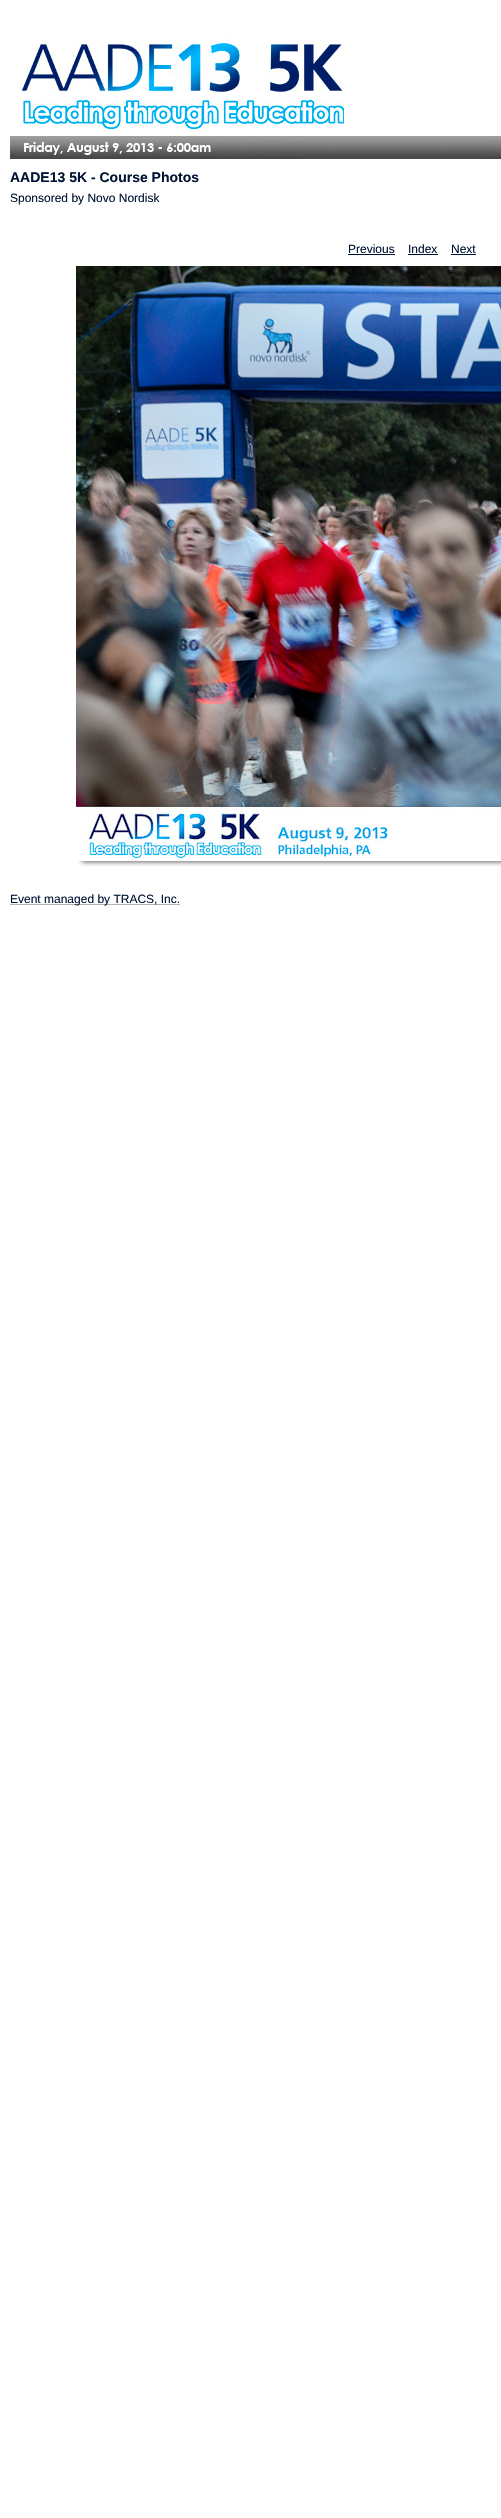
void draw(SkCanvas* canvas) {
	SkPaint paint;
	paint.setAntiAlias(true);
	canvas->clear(0xffffffff);
	canvas->drawImageRect(SkImages::DeferredFromEncodedData(SkData::MakeFromFileName("img1.png")), SkRect::MakeXYWH(10, 36, 491, 123), SkSamplingOptions());
	SkFont f1(fontMgr->matchFamilyStyle("Liberation Sans", SkFontStyle::Bold()), 14);
	f1.setSubpixel(true);
	paint.setColor(0xff001333);
	canvas->drawString("AADE13 5K - Course Photos", 10, 182, f1, paint);
	SkFont f2(fontMgr->matchFamilyStyle("Liberation Sans", SkFontStyle::Normal()), 12);
	f2.setSubpixel(true);
	canvas->drawString("Sponsored by Novo Nordisk", 10, 202, f2, paint);
	canvas->drawString("Previous", 348, 253, f2, paint);
	paint.setColor(0xff001233);
	canvas->drawRect(SkRect::MakeXYWH(348, 254, 47, 1), paint);
	paint.setColor(0xff001333);
	canvas->drawString("Index", 408, 253, f2, paint);
	paint.setColor(0xff001233);
	canvas->drawRect(SkRect::MakeXYWH(408, 254, 30, 1), paint);
	paint.setColor(0xff001333);
	canvas->drawString("Next", 451, 253, f2, paint);
	paint.setColor(0xff001233);
	canvas->drawRect(SkRect::MakeXYWH(451, 254, 25, 1), paint);
	canvas->drawImageRect(SkImages::DeferredFromEncodedData(SkData::MakeFromFileName("img2.png")), SkRect::MakeXYWH(86, 861, 415, 6), SkSamplingOptions());
	canvas->drawImageRect(SkImages::DeferredFromEncodedData(SkData::MakeFromFileName("img3.png")), SkRect::MakeXYWH(76, 266, 425, 595), SkSamplingOptions());
	canvas->drawImageRect(SkImages::DeferredFromEncodedData(SkData::MakeFromFileName("img4.png")), SkRect::MakeXYWH(78, 861, 8, 5), SkSamplingOptions());
	paint.setColor(0xffb3b3b3);
	canvas->drawRect(SkRect::MakeXYWH(10, 904, 170, 1), paint);
	paint.setColor(0xff001333);
	canvas->drawString("Event managed by TRACS, Inc.", 10, 903, f2, paint);
}
